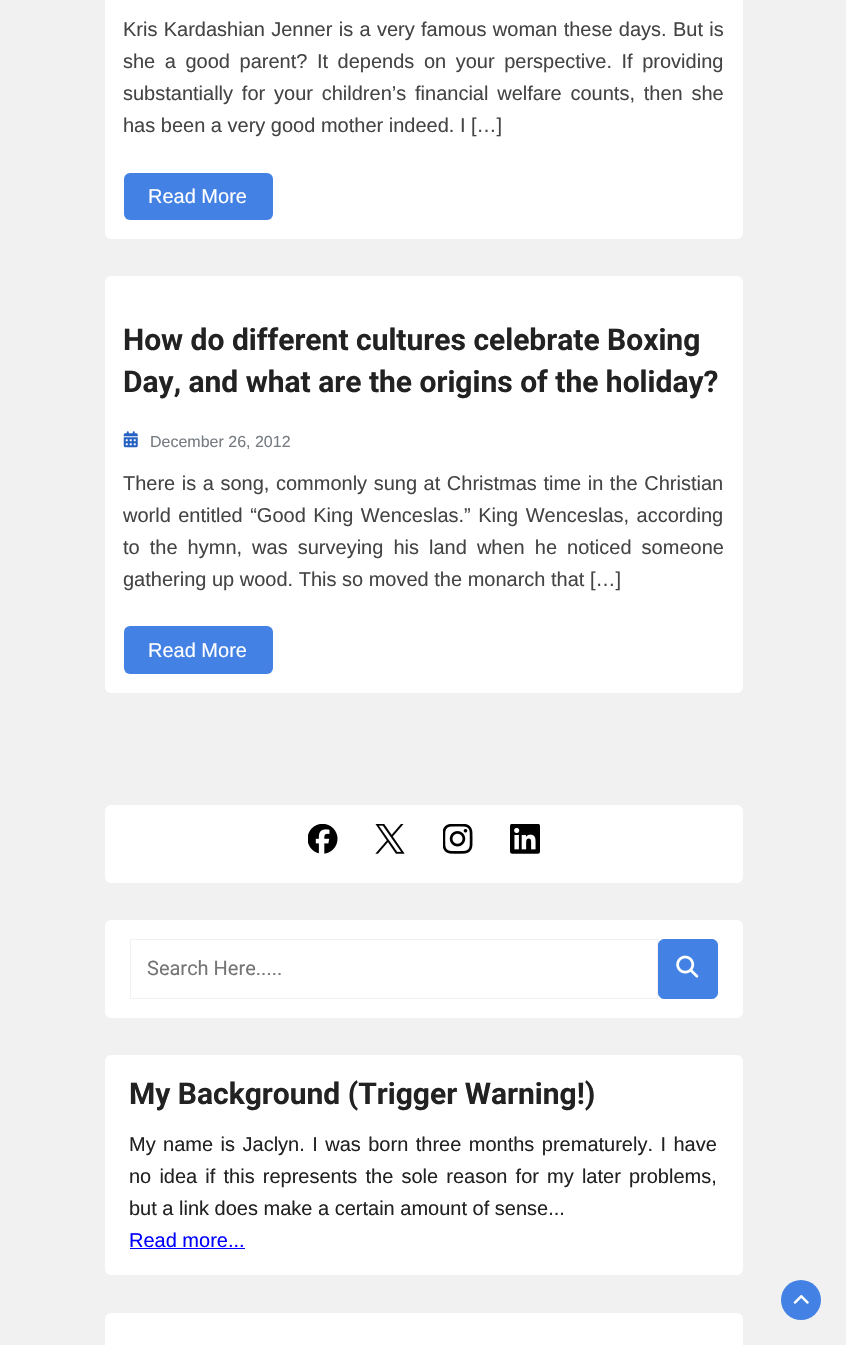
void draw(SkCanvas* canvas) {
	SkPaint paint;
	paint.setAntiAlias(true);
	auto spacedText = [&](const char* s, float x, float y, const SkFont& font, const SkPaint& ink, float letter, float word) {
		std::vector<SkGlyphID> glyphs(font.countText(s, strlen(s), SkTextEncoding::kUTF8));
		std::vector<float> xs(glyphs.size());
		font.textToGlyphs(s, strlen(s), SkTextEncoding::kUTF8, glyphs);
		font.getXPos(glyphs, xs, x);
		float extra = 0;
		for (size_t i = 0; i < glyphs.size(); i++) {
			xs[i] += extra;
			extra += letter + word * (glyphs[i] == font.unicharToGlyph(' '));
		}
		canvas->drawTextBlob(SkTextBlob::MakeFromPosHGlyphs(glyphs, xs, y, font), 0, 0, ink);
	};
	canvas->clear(0xfff1f1f1);
	paint.setColor(0xffffffff);
	canvas->drawRoundRect(SkRect::MakeXYWH(105, -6, 638, 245), 6, 6, paint);
	SkFont f1(fontMgr->matchFamilyStyle("Liberation Sans", SkFontStyle::Normal()), 20);
	f1.setSubpixel(true);
	paint.setColor(0xff444444);
	spacedText("Kris Kardashian Jenner is a very famous woman these days. But is", 123, 36, f1, paint, 0, 0.75);
	spacedText("she a good parent? It depends on your perspective. If providing", 123, 68, f1, paint, 0, 4);
	spacedText("substantially for your children’s financial welfare counts, then she", 123, 100, f1, paint, 0, 3.25);
	canvas->drawString("has been a very good mother indeed. I […]", 123, 132, f1, paint);
	paint.setColor(0xff4381e5);
	canvas->drawRoundRect(SkRect::MakeXYWH(124, 173, 149, 47), 6, 6, paint);
	paint.setColor(0xffffffff);
	canvas->drawString("Read More", 148, 203, f1, paint);
	canvas->drawRoundRect(SkRect::MakeXYWH(105, 276, 638, 417), 6, 6, paint);
	SkFont f2(fontMgr->matchFamilyStyle("Roboto", SkFontStyle::Bold()), 30);
	f2.setSubpixel(true);
	paint.setColor(0xff222222);
	canvas->drawString("How do different cultures celebrate Boxing", 123, 350, f2, paint);
	canvas->drawString("Day, and what are the origins of the holiday?", 123, 392, f2, paint);
	canvas->drawImageRect(SkImages::DeferredFromEncodedData(SkData::MakeFromFileName("img1.png")), SkRect::MakeXYWH(123, 431, 15, 17), SkSamplingOptions());
	SkFont f3(fontMgr->matchFamilyStyle("Liberation Sans", SkFontStyle::Normal()), 16);
	f3.setSubpixel(true);
	paint.setColor(0xff757b81);
	canvas->drawString("December 26, 2012", 150, 447, f3, paint);
	paint.setColor(0xff444444);
	spacedText("There is a song, commonly sung at Christmas time in the Christian", 123, 490, f1, paint, 0, 1);
	spacedText("world entitled “Good King Wenceslas.” King Wenceslas, according", 123, 522, f1, paint, 0, 1.9);
	spacedText("to the hymn, was surveying his land when he noticed someone", 123, 554, f1, paint, 0, 4.5);
	canvas->drawString("gathering up wood. This so moved the monarch that […]", 123, 586, f1, paint);
	paint.setColor(0xff4381e5);
	canvas->drawRoundRect(SkRect::MakeXYWH(124, 626, 149, 48), 6, 6, paint);
	paint.setColor(0xffffffff);
	canvas->drawString("Read More", 148, 657, f1, paint);
	canvas->drawRoundRect(SkRect::MakeXYWH(105, 805, 638, 78), 6, 6, paint);
	canvas->drawImageRect(SkImages::DeferredFromEncodedData(SkData::MakeFromFileName("img2.png")), SkRect::MakeXYWH(308, 824, 30, 30), SkSamplingOptions());
	canvas->drawImageRect(SkImages::DeferredFromEncodedData(SkData::MakeFromFileName("img3.png")), SkRect::MakeXYWH(375, 824, 30, 30), SkSamplingOptions());
	canvas->drawImageRect(SkImages::DeferredFromEncodedData(SkData::MakeFromFileName("img4.png")), SkRect::MakeXYWH(443, 824, 30, 30), SkSamplingOptions());
	canvas->drawImageRect(SkImages::DeferredFromEncodedData(SkData::MakeFromFileName("img5.png")), SkRect::MakeXYWH(510, 824, 30, 30), SkSamplingOptions());
	canvas->drawRoundRect(SkRect::MakeXYWH(105, 920, 638, 98), 6, 6, paint);
	paint.setStroke(true);
	paint.setStrokeWidth(1);
	paint.setColor(0xfff1f1f1);
	canvas->drawRect(SkRect::MakeXYWH(130.5, 939.5, 527, 59), paint);
	SkFont f4(fontMgr->matchFamilyStyle("Roboto", SkFontStyle::Normal()), 20);
	f4.setSubpixel(true);
	paint.setStroke(false);
	paint.setColor(0xff757575);
	canvas->drawString("Search Here.....", 147, 975, f4, paint);
	paint.setColor(0xff4381e5);
	canvas->drawRoundRect(SkRect::MakeXYWH(658.5, 939.5, 59, 59), 5.5, 5.5, paint);
	paint.setStroke(true);
	canvas->drawRoundRect(SkRect::MakeXYWH(658.5, 939.5, 59, 59), 5.5, 5.5, paint);
	canvas->drawImageRect(SkImages::DeferredFromEncodedData(SkData::MakeFromFileName("img6.png")), SkRect::MakeXYWH(676, 955, 23, 23), SkSamplingOptions());
	paint.setStroke(false);
	paint.setColor(0xffffffff);
	canvas->drawRoundRect(SkRect::MakeXYWH(105, 1055, 638, 220), 6, 6, paint);
	paint.setColor(0xff222222);
	canvas->drawString("My Background (Trigger Warning!)", 129, 1104, f2, paint);
	spacedText("My name is Jaclyn. I was born three months prematurely. I have", 129, 1151, f1, paint, 0, 1.9);
	spacedText("no idea if this represents the sole reason for my later problems,", 129, 1183, f1, paint, 0, 2.6);
	canvas->drawString("but a link does make a certain amount of sense...", 129, 1215, f1, paint);
	paint.setColor(0xff0000ff);
	canvas->drawString("Read more...", 129, 1247, f1, paint);
	canvas->drawRect(SkRect::MakeXYWH(130, 1248, 115, 1), paint);
	paint.setColor(0xffffffff);
	canvas->drawRoundRect(SkRect::MakeXYWH(105, 1313, 638, 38), 6, 6, paint);
	paint.setColor(0xff4381e5);
	canvas->drawCircle(801, 1300, 20, paint);
	canvas->drawImageRect(SkImages::DeferredFromEncodedData(SkData::MakeFromFileName("img7.png")), SkRect::MakeXYWH(793, 1295, 16, 9), SkSamplingOptions());
}
